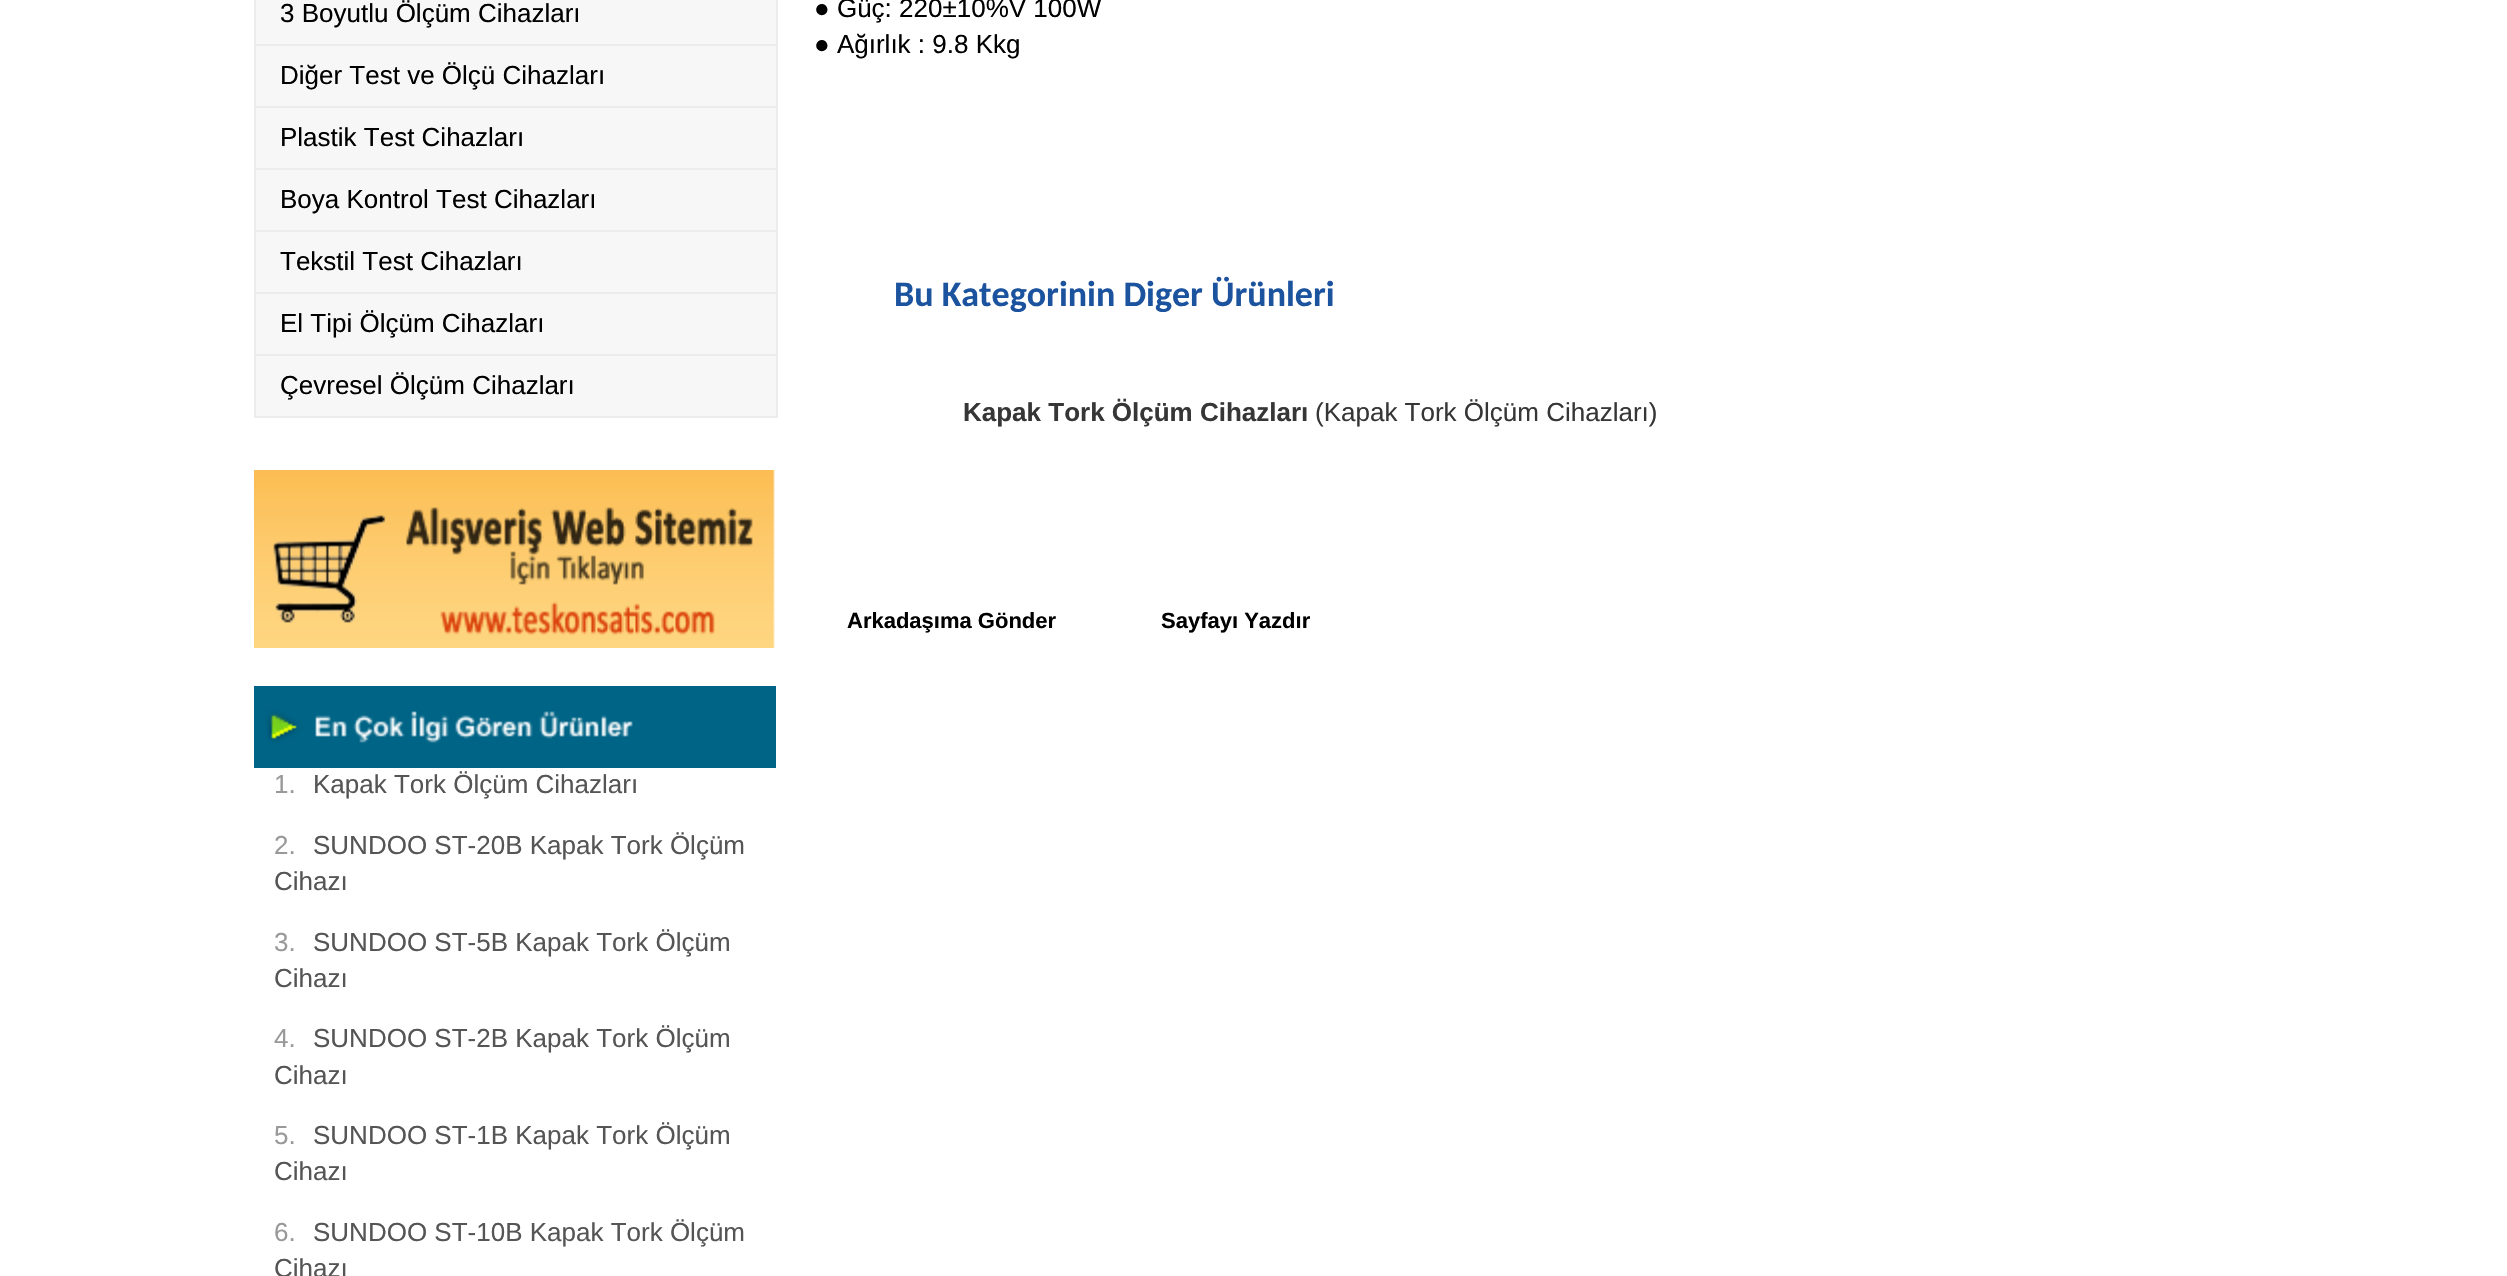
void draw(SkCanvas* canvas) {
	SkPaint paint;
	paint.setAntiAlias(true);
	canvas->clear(0xffffffff);
	paint.setColor(0xffebeced);
	canvas->drawRect(SkRect::MakeXYWH(776, 0, 2, 418), paint);
	canvas->drawRect(SkRect::MakeXYWH(254, 0, 2, 418), paint);
	paint.setColor(0xfff7f7f7);
	canvas->drawRect(SkRect::MakeXYWH(256, 0, 520, 44), paint);
	paint.setColor(0xffebeced);
	canvas->drawRect(SkRect::MakeXYWH(256, 44, 520, 2), paint);
	SkFont f1(fontMgr->matchFamilyStyle("Liberation Sans", SkFontStyle::Normal()), 26);
	f1.setSubpixel(true);
	paint.setColor(0xff000000);
	canvas->drawString("3 Boyutlu Ölçüm Cihazları", 280, 22, f1, paint);
	paint.setColor(0xfff7f7f7);
	canvas->drawRect(SkRect::MakeXYWH(256, 46, 520, 60), paint);
	paint.setColor(0xffebeced);
	canvas->drawRect(SkRect::MakeXYWH(256, 106, 520, 2), paint);
	paint.setColor(0xff000000);
	canvas->drawString("Diğer Test ve Ölçü Cihazları", 280, 84, f1, paint);
	paint.setColor(0xfff7f7f7);
	canvas->drawRect(SkRect::MakeXYWH(256, 108, 520, 60), paint);
	paint.setColor(0xffebeced);
	canvas->drawRect(SkRect::MakeXYWH(256, 168, 520, 2), paint);
	paint.setColor(0xff000000);
	canvas->drawString("Plastik Test Cihazları", 280, 146, f1, paint);
	paint.setColor(0xfff7f7f7);
	canvas->drawRect(SkRect::MakeXYWH(256, 170, 520, 60), paint);
	paint.setColor(0xffebeced);
	canvas->drawRect(SkRect::MakeXYWH(256, 230, 520, 2), paint);
	paint.setColor(0xff000000);
	canvas->drawString("Boya Kontrol Test Cihazları", 280, 208, f1, paint);
	paint.setColor(0xfff7f7f7);
	canvas->drawRect(SkRect::MakeXYWH(256, 232, 520, 60), paint);
	paint.setColor(0xffebeced);
	canvas->drawRect(SkRect::MakeXYWH(256, 292, 520, 2), paint);
	paint.setColor(0xff000000);
	canvas->drawString("Tekstil Test Cihazları", 280, 270, f1, paint);
	paint.setColor(0xfff7f7f7);
	canvas->drawRect(SkRect::MakeXYWH(256, 294, 520, 60), paint);
	paint.setColor(0xffebeced);
	canvas->drawRect(SkRect::MakeXYWH(256, 354, 520, 2), paint);
	paint.setColor(0xff000000);
	canvas->drawString("El Tipi Ölçüm Cihazları", 280, 332, f1, paint);
	paint.setColor(0xfff7f7f7);
	canvas->drawRect(SkRect::MakeXYWH(256, 356, 520, 60), paint);
	paint.setColor(0xffebeced);
	canvas->drawRect(SkRect::MakeXYWH(256, 416, 520, 2), paint);
	paint.setColor(0xff000000);
	canvas->drawString("Çevresel Ölçüm Cihazları", 280, 394, f1, paint);
	canvas->drawImageRect(SkImages::DeferredFromEncodedData(SkData::MakeFromFileName("img1.png")), SkRect::MakeXYWH(254, 470, 521, 178), SkSamplingOptions());
	canvas->drawImageRect(SkImages::DeferredFromEncodedData(SkData::MakeFromFileName("img2.png")), SkRect::MakeXYWH(254, 686, 522, 82), SkSamplingOptions());
	paint.setColor(0xff999999);
	canvas->drawString("1.", 274, 793, f1, paint);
	paint.setColor(0xff555555);
	canvas->drawString("Kapak Tork Ölçüm Cihazları", 313, 793, f1, paint);
	paint.setColor(0xff999999);
	canvas->drawString("2.", 274, 854, f1, paint);
	paint.setColor(0xff555555);
	canvas->drawString("SUNDOO ST-20B Kapak Tork Ölçüm", 313, 854, f1, paint);
	canvas->drawString("Cihazı", 274, 890, f1, paint);
	paint.setColor(0xff999999);
	canvas->drawString("3.", 274, 951, f1, paint);
	paint.setColor(0xff555555);
	canvas->drawString("SUNDOO ST-5B Kapak Tork Ölçüm", 313, 951, f1, paint);
	canvas->drawString("Cihazı", 274, 987, f1, paint);
	paint.setColor(0xff999999);
	canvas->drawString("4.", 274, 1047, f1, paint);
	paint.setColor(0xff555555);
	canvas->drawString("SUNDOO ST-2B Kapak Tork Ölçüm", 313, 1047, f1, paint);
	canvas->drawString("Cihazı", 274, 1084, f1, paint);
	paint.setColor(0xff999999);
	canvas->drawString("5.", 274, 1144, f1, paint);
	paint.setColor(0xff555555);
	canvas->drawString("SUNDOO ST-1B Kapak Tork Ölçüm", 313, 1144, f1, paint);
	canvas->drawString("Cihazı", 274, 1180, f1, paint);
	paint.setColor(0xff999999);
	canvas->drawString("6.", 274, 1241, f1, paint);
	paint.setColor(0xff555555);
	canvas->drawString("SUNDOO ST-10B Kapak Tork Ölçüm", 313, 1241, f1, paint);
	canvas->drawString("Cihazı", 274, 1277, f1, paint);
	paint.setColor(0xff000000);
	canvas->drawString("● Güç: 220±10%V 100W", 814, 17, f1, paint);
	canvas->drawString("● Ağırlık : 9.8 Kkg", 814, 53, f1, paint);
	SkFont f2(fontMgr->matchFamilyStyle("Carlito", SkFontStyle::Bold()), 36);
	f2.setSubpixel(true);
	paint.setColor(0xff1b539e);
	canvas->drawString("Bu Kategorinin Diger Ürünleri", 894, 306, f2, paint);
	SkFont f3(fontMgr->matchFamilyStyle("Liberation Sans", SkFontStyle::Bold()), 26);
	f3.setSubpixel(true);
	paint.setColor(0xff363636);
	canvas->drawString("Kapak Tork Ölçüm Cihazları", 963, 421, f3, paint);
	canvas->drawString("(Kapak Tork Ölçüm Cihazları)", 1315, 421, f1, paint);
	SkFont f4(fontMgr->matchFamilyStyle("Liberation Sans", SkFontStyle::Bold()), 22);
	f4.setSubpixel(true);
	paint.setColor(0xff000000);
	canvas->drawString("Arkadaşıma Gönder", 847, 628, f4, paint);
	canvas->drawString("Sayfayı Yazdır", 1161, 628, f4, paint);
}
